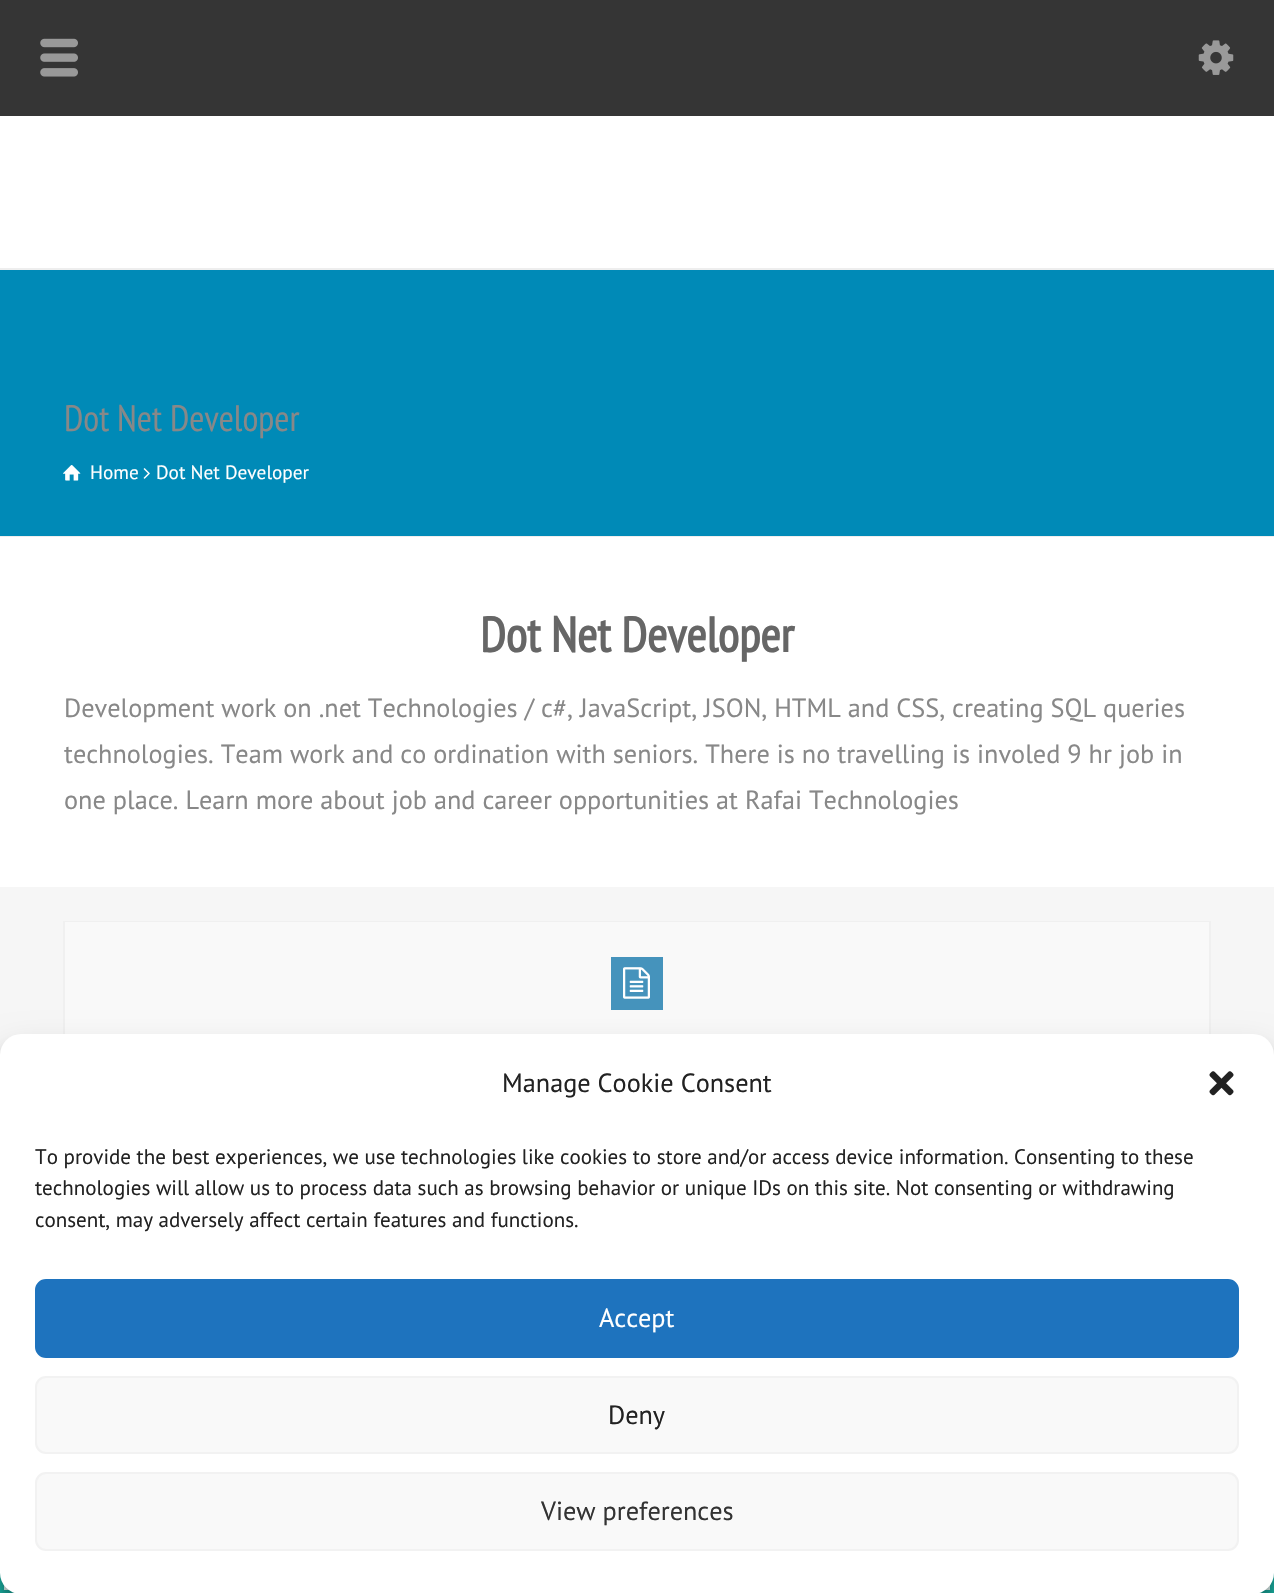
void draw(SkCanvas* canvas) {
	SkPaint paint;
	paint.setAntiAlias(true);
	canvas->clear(0xffffffff);
	paint.setColor(0xff353535);
	canvas->drawRect(SkRect::MakeXYWH(0, 0, 1274, 116), paint);
	canvas->drawImageRect(SkImages::DeferredFromEncodedData(SkData::MakeFromFileName("img1.png")), SkRect::MakeXYWH(40, 38, 38, 39), SkSamplingOptions());
	canvas->drawImageRect(SkImages::DeferredFromEncodedData(SkData::MakeFromFileName("img2.png")), SkRect::MakeXYWH(1198, 40, 36, 35), SkSamplingOptions());
	paint.setColor(0xff008ab7);
	canvas->drawRect(SkRect::MakeXYWH(0, 270, 1274, 266), paint);
	paint.setColor(0xffeeeeee);
	canvas->drawRect(SkRect::MakeXYWH(0, 268, 1274, 2), paint);
	canvas->drawRect(SkRect::MakeXYWH(0, 536, 1274, 1), paint);
	SkFont f1(fontMgr->matchFamilyStyle("PT Sans Narrow", SkFontStyle::Normal()), 36.75);
	f1.setSubpixel(true);
	paint.setColor(0xff888888);
	canvas->drawString("Dot Net Developer", 64, 431, f1, paint);
	canvas->drawImageRect(SkImages::DeferredFromEncodedData(SkData::MakeFromFileName("img3.png")), SkRect::MakeXYWH(63, 465, 18, 16), SkSamplingOptions());
	SkFont f2(fontMgr->matchFamilyStyle("PT Sans", SkFontStyle::Normal()), 19.25);
	f2.setSubpixel(true);
	paint.setColor(0xffffffff);
	canvas->drawString("Home", 90, 479, f2, paint);
	canvas->drawImageRect(SkImages::DeferredFromEncodedData(SkData::MakeFromFileName("img4.png")), SkRect::MakeXYWH(143, 468, 7, 11), SkSamplingOptions());
	canvas->drawString("Dot Net Developer", 156, 479, f2, paint);
	SkFont f3(fontMgr->matchFamilyStyle("PT Sans Narrow", SkFontStyle::Bold()), 49);
	f3.setSubpixel(true);
	paint.setColor(0xff666666);
	canvas->drawString("Dot Net Developer", 480, 652, f3, paint);
	SkFont f4(fontMgr->matchFamilyStyle("PT Sans", SkFontStyle::Normal()), 26.25);
	f4.setSubpixel(true);
	paint.setColor(0xff888888);
	canvas->drawString("Development work on .net Technologies / c#, JavaScript, JSON, HTML and CSS, creating SQL queries", 64, 717, f4, paint);
	canvas->drawString("technologies. Team work and co ordination with seniors. There is no travelling is involed 9 hr job in", 64, 763, f4, paint);
	canvas->drawString("one place. Learn more about job and career opportunities at Rafai Technologies", 64, 809, f4, paint);
	paint.setColor(0xfff6f6f6);
	canvas->drawRect(SkRect::MakeXYWH(0, 887, 1274, 168), paint);
	paint.setStroke(true);
	paint.setStrokeWidth(2);
	paint.setColor(0xfff0f0f0);
	canvas->drawRect(SkRect::MakeXYWH(64, 922, 1146, 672), paint);
	paint.setStroke(false);
	paint.setColor(0xfff9f9f9);
	canvas->drawRect(SkRect::MakeXYWH(65, 922, 1144, 112), paint);
	paint.setColor(0xff4593bc);
	canvas->drawRect(SkRect::MakeXYWH(611, 957, 52, 53), paint);
	canvas->drawImageRect(SkImages::DeferredFromEncodedData(SkData::MakeFromFileName("img5.png")), SkRect::MakeXYWH(623, 967, 27, 32), SkSamplingOptions());
	paint.setColor(0xffe9fefb);
	canvas->drawRect(SkRect::MakeXYWH(4, 1585, 1266, 5), paint);
	paint.setStroke(true);
	paint.setStrokeWidth(4);
	paint.setColor(0xff1ab5a7);
	canvas->drawRect(SkRect::MakeXYWH(2, 1546, 1270, 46), paint);
	paint.setStroke(false);
	paint.setColor(0x3b000000);
	paint.setMaskFilter(SkMaskFilter::MakeBlur(kNormal_SkBlurStyle, 5));
	canvas->drawRoundRect(SkRect::MakeXYWH(0, 1045, 1274, 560), 21, 21, paint);
	paint.setMaskFilter(nullptr);
	paint.setColor(0x30000000);
	paint.setMaskFilter(SkMaskFilter::MakeBlur(kNormal_SkBlurStyle, 17.5));
	canvas->drawRoundRect(SkRect::MakeXYWH(0, 1052, 1274, 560), 21, 21, paint);
	paint.setMaskFilter(nullptr);
	paint.setColor(0xffffffff);
	canvas->drawRoundRect(SkRect::MakeXYWH(0, 1034, 1274, 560), 21, 21, paint);
	paint.setColor(0xff222222);
	canvas->drawString("Manage Cookie Consent", 502, 1092, f4, paint);
	canvas->drawImageRect(SkImages::DeferredFromEncodedData(SkData::MakeFromFileName("img6.png")), SkRect::MakeXYWH(1209, 1071, 25, 25), SkSamplingOptions());
	SkFont f5(fontMgr->matchFamilyStyle("PT Sans", SkFontStyle::Normal()), 21);
	f5.setSubpixel(true);
	canvas->drawString("To provide the best experiences, we use technologies like cookies to store and/or access device information. Consenting to these", 35, 1164, f5, paint);
	canvas->drawString("technologies will allow us to process data such as browsing behavior or unique IDs on this site. Not consenting or withdrawing", 35, 1195, f5, paint);
	canvas->drawString("consent, may adversely affect certain features and functions.", 35, 1227, f5, paint);
	paint.setColor(0xff1e73be);
	canvas->drawRoundRect(SkRect::MakeXYWH(36, 1280, 1202, 77), 10, 10, paint);
	paint.setStroke(true);
	paint.setStrokeWidth(2);
	canvas->drawRoundRect(SkRect::MakeXYWH(36, 1280, 1202, 77), 10, 10, paint);
	paint.setStroke(false);
	paint.setColor(0xffffffff);
	canvas->drawString("Accept", 599, 1327, f4, paint);
	paint.setColor(0xfff9f9f9);
	canvas->drawRoundRect(SkRect::MakeXYWH(36, 1377, 1202, 76), 10, 10, paint);
	paint.setStroke(true);
	paint.setColor(0xfff2f2f2);
	canvas->drawRoundRect(SkRect::MakeXYWH(36, 1377, 1202, 76), 10, 10, paint);
	paint.setStroke(false);
	paint.setColor(0xff222222);
	canvas->drawString("Deny", 608, 1424, f4, paint);
	paint.setColor(0xfff9f9f9);
	canvas->drawRoundRect(SkRect::MakeXYWH(36, 1473, 1202, 77), 10, 10, paint);
	paint.setStroke(true);
	paint.setColor(0xfff2f2f2);
	canvas->drawRoundRect(SkRect::MakeXYWH(36, 1473, 1202, 77), 10, 10, paint);
	paint.setStroke(false);
	paint.setColor(0xff333333);
	canvas->drawString("View preferences", 541, 1520, f4, paint);
}
